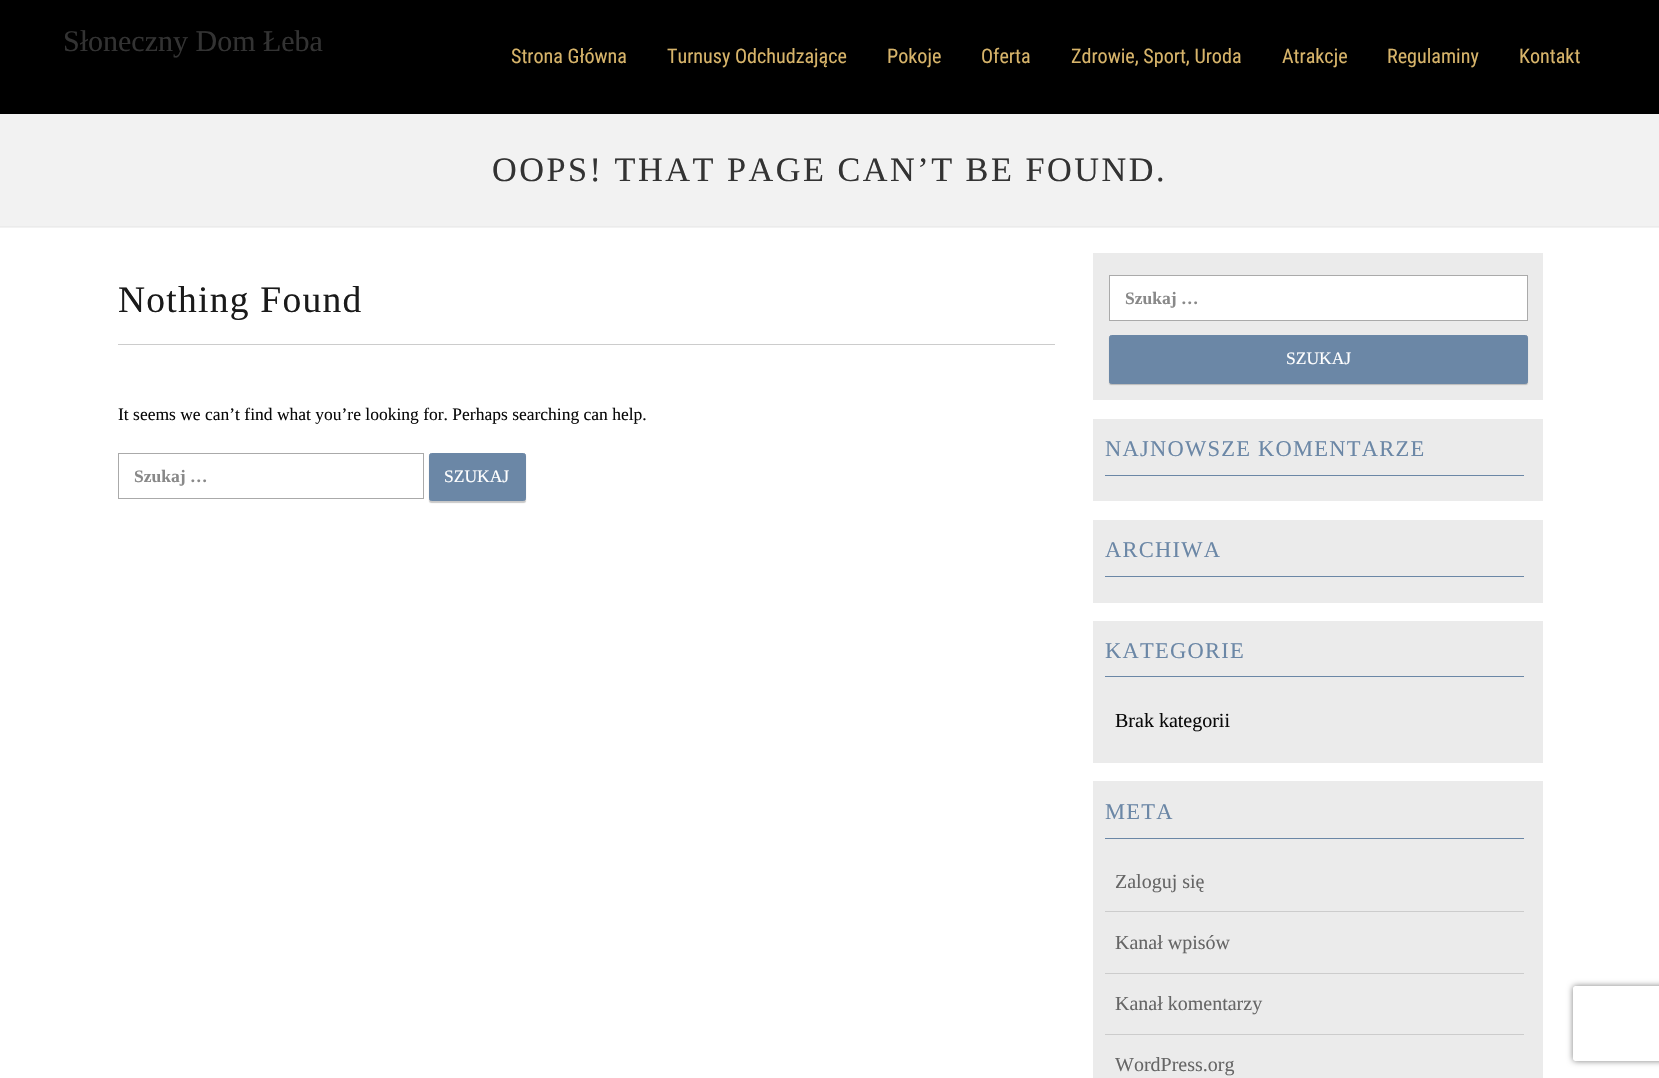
void draw(SkCanvas* canvas) {
	SkPaint paint;
	paint.setAntiAlias(true);
	auto spacedText = [&](const char* s, float x, float y, const SkFont& font, const SkPaint& ink, float letter, float word) {
		std::vector<SkGlyphID> glyphs(font.countText(s, strlen(s), SkTextEncoding::kUTF8));
		std::vector<float> xs(glyphs.size());
		font.textToGlyphs(s, strlen(s), SkTextEncoding::kUTF8, glyphs);
		font.getXPos(glyphs, xs, x);
		float extra = 0;
		for (size_t i = 0; i < glyphs.size(); i++) {
			xs[i] += extra;
			extra += letter + word * (glyphs[i] == font.unicharToGlyph(' '));
		}
		canvas->drawTextBlob(SkTextBlob::MakeFromPosHGlyphs(glyphs, xs, y, font), 0, 0, ink);
	};
	auto svgPath = [&](const char* data, bool evenOdd = false) {
		SkPath result = *SkParsePath::FromSVGString(data);
		if (evenOdd) result.setFillType(SkPathFillType::kEvenOdd);
		return result;
	};
	canvas->clear(0xffffffff);
	paint.setColor(0xff000000);
	canvas->drawRect(SkRect::MakeXYWH(0, 0, 1659, 114), paint);
	SkFont f1(fontMgr->matchFamilyStyle("Liberation Serif", SkFontStyle::Normal()), 30);
	f1.setSubpixel(true);
	paint.setColor(0xff333333);
	canvas->drawString("Słoneczny Dom Łeba", 63, 51, f1, paint);
	SkFont f2(fontMgr->matchFamilyStyle("Roboto Condensed", SkFontStyle::Normal()), 20.1);
	f2.setSubpixel(true);
	paint.setColor(0xffd7b46a);
	canvas->drawString("Strona Główna", 511, 63, f2, paint);
	canvas->drawString("Turnusy Odchudzające", 667, 63, f2, paint);
	canvas->drawString("Pokoje", 887, 63, f2, paint);
	canvas->drawString("Oferta", 981, 63, f2, paint);
	canvas->drawString("Zdrowie, Sport, Uroda", 1071, 63, f2, paint);
	canvas->drawString("Atrakcje", 1282, 63, f2, paint);
	canvas->drawString("Regulaminy", 1387, 63, f2, paint);
	canvas->drawString("Kontakt", 1519, 63, f2, paint);
	paint.setColor(0xfff2f2f2);
	canvas->drawRect(SkRect::MakeXYWH(0, 114, 1659, 114), paint);
	paint.setColor(0xffebebeb);
	canvas->drawRect(SkRect::MakeXYWH(0, 226, 1659, 1), paint);
	SkFont f3(fontMgr->matchFamilyStyle("Liberation Serif", SkFontStyle::Normal()), 34.25);
	f3.setSubpixel(true);
	paint.setColor(0xff333333);
	spacedText("OOPS! THAT PAGE CAN’T BE FOUND.", 492, 181, f3, paint, 2.5, 0);
	SkFont f4(fontMgr->matchFamilyStyle("Liberation Serif", SkFontStyle::Normal()), 37.5);
	f4.setSubpixel(true);
	paint.setColor(0xff1a1a1a);
	spacedText("Nothing Found", 118, 312, f4, paint, 1.25, 0);
	paint.setColor(0xffcccccc);
	canvas->drawRect(SkRect::MakeXYWH(118, 344, 937, 1), paint);
	SkFont f5(fontMgr->matchFamilyStyle("Liberation Serif", SkFontStyle::Normal()), 17.5);
	f5.setSubpixel(true);
	paint.setColor(0xff0a0a0a);
	canvas->drawString("It seems we can’t find what you’re looking for. Perhaps searching can help.", 118, 420, f5, paint);
	paint.setStroke(true);
	paint.setStrokeWidth(1);
	paint.setColor(0xffaaaaaa);
	canvas->drawRect(SkRect::MakeXYWH(118.5, 453.5, 305, 45), paint);
	SkFont f6(fontMgr->matchFamilyStyle("Liberation Serif", SkFontStyle::Bold()), 17.5);
	f6.setSubpixel(true);
	paint.setStroke(false);
	paint.setColor(0xff898989);
	canvas->drawString("Szukaj …", 134, 482, f6, paint);
	paint.setColor(0x40242424);
	paint.setMaskFilter(SkMaskFilter::MakeBlur(kNormal_SkBlurStyle, 0.5));
	canvas->drawRoundRect(SkRect::MakeXYWH(429, 454, 97, 49), 2.5, 2.5, paint);
	paint.setMaskFilter(nullptr);
	paint.setColor(0xff6b87a6);
	canvas->drawRoundRect(SkRect::MakeXYWH(429.5, 453.5, 96, 47), 2, 2, paint);
	paint.setStroke(true);
	canvas->drawRoundRect(SkRect::MakeXYWH(429.5, 453.5, 96, 47), 2, 2, paint);
	paint.setStroke(false);
	paint.setColor(0xffffffff);
	canvas->drawString("SZUKAJ", 444, 482, f5, paint);
	paint.setColor(0xffebebeb);
	canvas->drawRect(SkRect::MakeXYWH(1093, 253, 450, 147), paint);
	paint.setColor(0xffffffff);
	canvas->drawRect(SkRect::MakeXYWH(1109.5, 275.5, 418, 45), paint);
	paint.setStroke(true);
	paint.setColor(0xffaaaaaa);
	canvas->drawRect(SkRect::MakeXYWH(1109.5, 275.5, 418, 45), paint);
	paint.setStroke(false);
	paint.setColor(0xff898989);
	canvas->drawString("Szukaj …", 1125, 304, f6, paint);
	paint.setColor(0x40242424);
	paint.setMaskFilter(SkMaskFilter::MakeBlur(kNormal_SkBlurStyle, 0.5));
	canvas->drawRoundRect(SkRect::MakeXYWH(1109, 336, 419, 49), 2.5, 2.5, paint);
	paint.setMaskFilter(nullptr);
	paint.setColor(0xff6b87a6);
	canvas->drawRoundRect(SkRect::MakeXYWH(1109.5, 335.5, 418, 48), 2, 2, paint);
	paint.setStroke(true);
	canvas->drawRoundRect(SkRect::MakeXYWH(1109.5, 335.5, 418, 48), 2, 2, paint);
	paint.setStroke(false);
	paint.setColor(0xffffffff);
	canvas->drawString("SZUKAJ", 1286, 364, f5, paint);
	paint.setColor(0xffebebeb);
	canvas->drawRect(SkRect::MakeXYWH(1093, 419, 450, 82), paint);
	paint.setColor(0xff6b87a6);
	canvas->drawRect(SkRect::MakeXYWH(1105, 475, 419, 1), paint);
	SkFont f7(fontMgr->matchFamilyStyle("Liberation Serif", SkFontStyle::Normal()), 22.5);
	f7.setSubpixel(true);
	spacedText("NAJNOWSZE KOMENTARZE", 1105, 456, f7, paint, 1.25, 0);
	paint.setColor(0xffebebeb);
	canvas->drawRect(SkRect::MakeXYWH(1093, 520, 450, 83), paint);
	paint.setColor(0xff6b87a6);
	canvas->drawRect(SkRect::MakeXYWH(1105, 576, 419, 1), paint);
	spacedText("ARCHIWA", 1105, 557, f7, paint, 1.25, 0);
	paint.setColor(0xffebebeb);
	canvas->drawRect(SkRect::MakeXYWH(1093, 621, 450, 142), paint);
	paint.setColor(0xff6b87a6);
	canvas->drawRect(SkRect::MakeXYWH(1105, 676, 419, 1), paint);
	spacedText("KATEGORIE", 1105, 658, f7, paint, 1.25, 0);
	SkFont f8(fontMgr->matchFamilyStyle("Liberation Serif", SkFontStyle::Normal()), 20);
	f8.setSubpixel(true);
	paint.setColor(0xff0a0a0a);
	canvas->drawString("Brak kategorii", 1115, 727, f8, paint);
	paint.setColor(0xffebebeb);
	canvas->drawRect(SkRect::MakeXYWH(1093, 781, 450, 297), paint);
	paint.setColor(0xff6b87a6);
	canvas->drawRect(SkRect::MakeXYWH(1105, 838, 419, 1), paint);
	spacedText("META", 1105, 819, f7, paint, 1.25, 0);
	paint.setColor(0xffcccccc);
	canvas->drawRect(SkRect::MakeXYWH(1105, 911, 419, 1), paint);
	paint.setColor(0xff666666);
	canvas->drawString("Zaloguj się", 1115, 888, f8, paint);
	paint.setColor(0xffcccccc);
	canvas->drawRect(SkRect::MakeXYWH(1105, 973, 419, 1), paint);
	paint.setColor(0xff666666);
	canvas->drawString("Kanał wpisów", 1115, 949, f8, paint);
	paint.setColor(0xffcccccc);
	canvas->drawRect(SkRect::MakeXYWH(1105, 1034, 419, 1), paint);
	paint.setColor(0xff666666);
	canvas->drawString("Kanał komentarzy", 1115, 1010, f8, paint);
	canvas->drawString("WordPress.org", 1115, 1071, f8, paint);
	canvas->save();
	canvas->clipPath(svgPath("M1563 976H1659V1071H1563ZM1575.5 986H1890.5C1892 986 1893 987 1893 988.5V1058.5C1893 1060 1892 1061 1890.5 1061H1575.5C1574 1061 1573 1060 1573 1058.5V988.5C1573 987 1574 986 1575.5 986Z", true), true);
	paint.setColor(0xff808080);
	paint.setMaskFilter(SkMaskFilter::MakeBlur(kNormal_SkBlurStyle, 3));
	canvas->drawRoundRect(SkRect::MakeXYWH(1573, 986, 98, 75), 2.5, 2.5, paint);
	paint.setMaskFilter(nullptr);
	canvas->restore();
}
